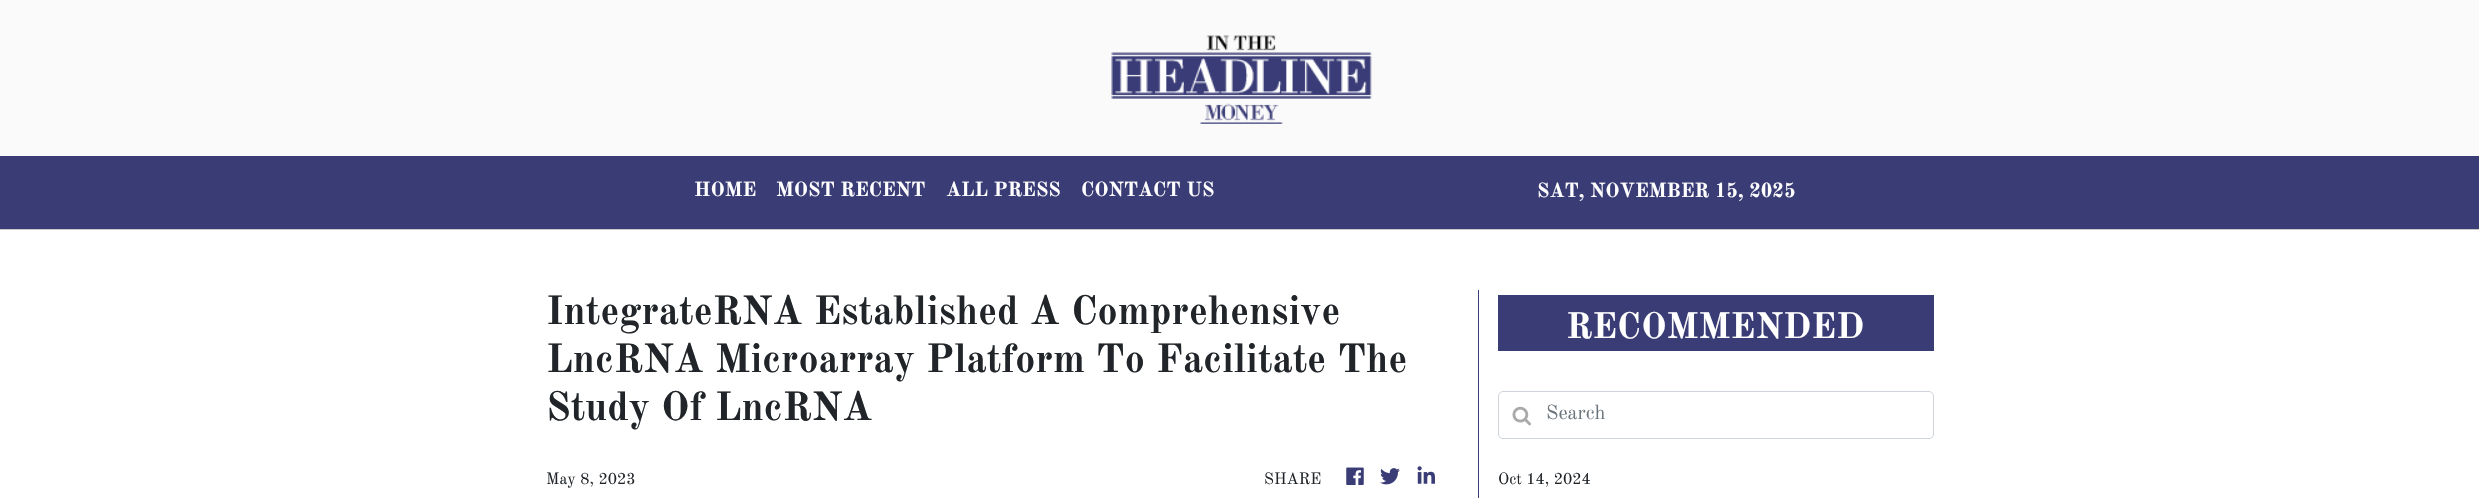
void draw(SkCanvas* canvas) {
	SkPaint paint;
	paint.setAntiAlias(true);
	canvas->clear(0xffffffff);
	paint.setColor(0xfffafafa);
	canvas->drawRect(SkRect::MakeXYWH(0, 0, 2479, 156), paint);
	canvas->drawImageRect(SkImages::DeferredFromEncodedData(SkData::MakeFromFileName("img1.png")), SkRect::MakeXYWH(1111, 35, 261, 89), SkSamplingOptions());
	paint.setColor(0xff3a3c76);
	canvas->drawRect(SkRect::MakeXYWH(0, 156, 2479, 73), paint);
	paint.setColor(0xffcacaca);
	canvas->drawRect(SkRect::MakeXYWH(0, 229, 2479, 1), paint);
	SkFont f1(fontMgr->matchFamilyStyle("Old Standard TT", SkFontStyle::Bold()), 20);
	f1.setSubpixel(true);
	paint.setColor(0xffffffff);
	canvas->drawString("HOME", 694, 196, f1, paint);
	canvas->drawString("MOST RECENT", 776, 196, f1, paint);
	canvas->drawString("ALL PRESS", 946, 196, f1, paint);
	canvas->drawString("CONTACT US", 1081, 196, f1, paint);
	canvas->drawString("SAT, NOVEMBER 15, 2025", 1537, 197, f1, paint);
	SkFont f2(fontMgr->matchFamilyStyle("Old Standard TT", SkFontStyle::Bold()), 40);
	f2.setSubpixel(true);
	paint.setColor(0xff212529);
	canvas->drawString("IntegrateRNA Established A Comprehensive", 546, 324, f2, paint);
	canvas->drawString("LncRNA Microarray Platform To Facilitate The", 546, 372, f2, paint);
	canvas->drawString("Study Of LncRNA", 546, 420, f2, paint);
	SkFont f3(fontMgr->matchFamilyStyle("Old Standard TT", SkFontStyle::Normal()), 16);
	f3.setSubpixel(true);
	canvas->drawString("May 8, 2023", 546, 484, f3, paint);
	canvas->drawString("SHARE", 1264, 484, f3, paint);
	canvas->drawImageRect(SkImages::DeferredFromEncodedData(SkData::MakeFromFileName("img2.png")), SkRect::MakeXYWH(1346, 467, 18, 18), SkSamplingOptions());
	canvas->drawImageRect(SkImages::DeferredFromEncodedData(SkData::MakeFromFileName("img3.png")), SkRect::MakeXYWH(1380, 468, 20, 17), SkSamplingOptions());
	canvas->drawImageRect(SkImages::DeferredFromEncodedData(SkData::MakeFromFileName("img4.png")), SkRect::MakeXYWH(1417, 466, 18, 18), SkSamplingOptions());
	paint.setColor(0xff3a3c76);
	canvas->drawRect(SkRect::MakeXYWH(1478, 290, 1, 208), paint);
	canvas->drawRect(SkRect::MakeXYWH(1498, 295, 436, 56), paint);
	SkFont f4(fontMgr->matchFamilyStyle("Old Standard TT", SkFontStyle::Bold()), 36);
	f4.setSubpixel(true);
	paint.setColor(0xffffffff);
	canvas->drawString("RECOMMENDED", 1566, 338, f4, paint);
	paint.setStroke(true);
	paint.setStrokeWidth(1);
	paint.setColor(0xffced4da);
	canvas->drawRoundRect(SkRect::MakeXYWH(1498.5, 391.5, 435, 47), 4.5, 4.5, paint);
	canvas->drawImageRect(SkImages::DeferredFromEncodedData(SkData::MakeFromFileName("img5.png")), SkRect::MakeXYWH(1512, 406, 19, 20), SkSamplingOptions());
	SkFont f5(fontMgr->matchFamilyStyle("Old Standard TT", SkFontStyle::Normal()), 20);
	f5.setSubpixel(true);
	paint.setStroke(false);
	paint.setColor(0xff6c757d);
	canvas->drawString("Search", 1546, 419, f5, paint);
	paint.setColor(0xff212529);
	canvas->drawString("Oct 14, 2024", 1498, 484, f3, paint);
}
